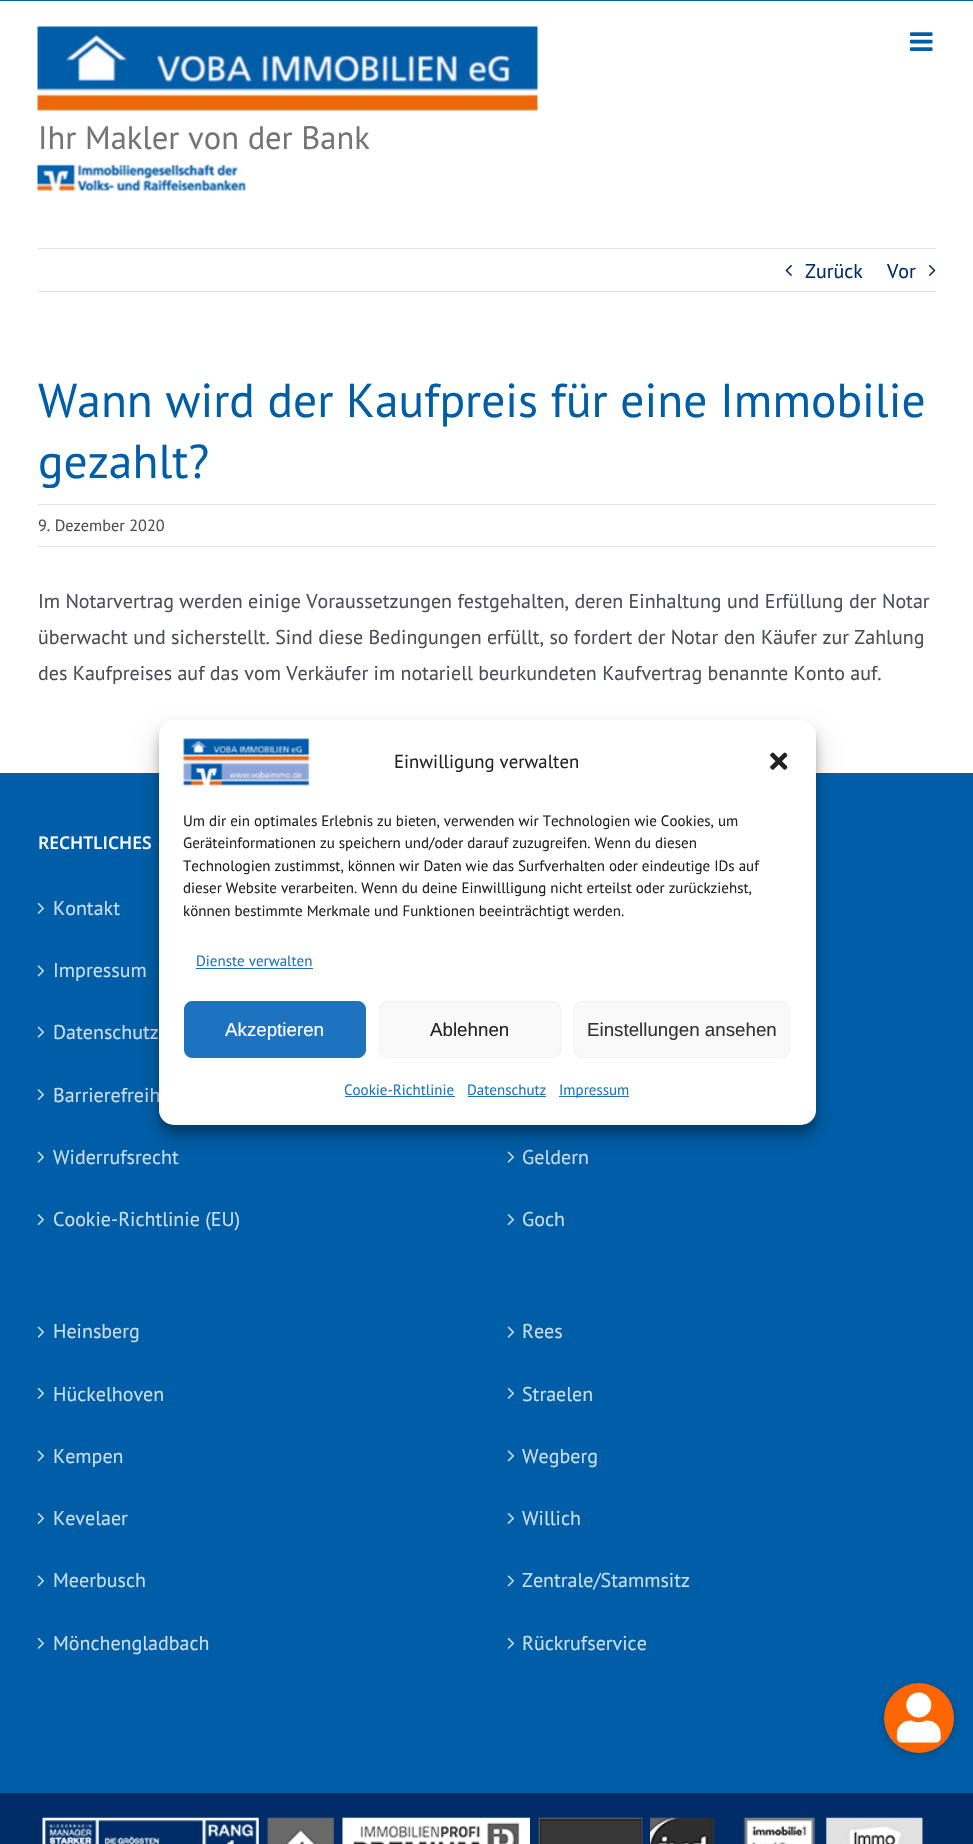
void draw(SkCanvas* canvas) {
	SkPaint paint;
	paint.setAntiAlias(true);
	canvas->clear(0xffffffff);
	paint.setColor(0xff005ea8);
	canvas->drawRect(SkRect::MakeXYWH(0, 0, 973, 1), paint);
	canvas->drawImageRect(SkImages::DeferredFromEncodedData(SkData::MakeFromFileName("img1.png")), SkRect::MakeXYWH(910, 32, 23, 19), SkSamplingOptions());
	canvas->drawImageRect(SkImages::DeferredFromEncodedData(SkData::MakeFromFileName("img2.png")), SkRect::MakeXYWH(37, 26, 501, 85), SkSamplingOptions());
	SkFont f1(fontMgr->matchFamilyStyle("PT Sans", SkFontStyle::Normal()), 32.5);
	f1.setSubpixel(true);
	paint.setColor(0xff747474);
	canvas->drawString("Ihr Makler von der Bank", 38, 149, f1, paint);
	canvas->drawImageRect(SkImages::DeferredFromEncodedData(SkData::MakeFromFileName("img3.png")), SkRect::MakeXYWH(37, 164, 209, 27), SkSamplingOptions());
	paint.setColor(0xffe2e2e2);
	canvas->drawRect(SkRect::MakeXYWH(38, 248, 898, 1), paint);
	canvas->drawRect(SkRect::MakeXYWH(38, 291, 898, 1), paint);
	canvas->drawImageRect(SkImages::DeferredFromEncodedData(SkData::MakeFromFileName("img4.png")), SkRect::MakeXYWH(785, 265, 7, 11), SkSamplingOptions());
	SkFont f2(fontMgr->matchFamilyStyle("PT Sans", SkFontStyle::Normal()), 20);
	f2.setSubpixel(true);
	paint.setColor(0xff002d67);
	canvas->drawString("Zurück", 805, 278, f2, paint);
	canvas->drawString("Vor", 887, 278, f2, paint);
	canvas->drawImageRect(SkImages::DeferredFromEncodedData(SkData::MakeFromFileName("img5.png")), SkRect::MakeXYWH(928, 265, 8, 11), SkSamplingOptions());
	SkFont f3(fontMgr->matchFamilyStyle("PT Sans", SkFontStyle::Normal()), 47.5);
	f3.setSubpixel(true);
	paint.setColor(0xff005ea8);
	canvas->drawString("Wann wird der Kaufpreis für eine Immobilie", 38, 417, f3, paint);
	canvas->drawString("gezahlt?", 38, 478, f3, paint);
	paint.setColor(0xffe2e2e2);
	canvas->drawRect(SkRect::MakeXYWH(38, 504, 898, 1), paint);
	canvas->drawRect(SkRect::MakeXYWH(38, 546, 898, 1), paint);
	SkFont f4(fontMgr->matchFamilyStyle("PT Sans", SkFontStyle::Normal()), 16.25);
	f4.setSubpixel(true);
	paint.setColor(0xff4a4e57);
	canvas->drawString("9. Dezember 2020", 38, 531, f4, paint);
	canvas->drawString("Im Notarvertrag werden einige Voraussetzungen festgehalten, deren Einhaltung und Erfüllung der Notar", 38, 608, f2, paint);
	canvas->drawString("überwacht und sicherstellt. Sind diese Bedingungen erfüllt, so fordert der Notar den Käufer zur Zahlung", 38, 644, f2, paint);
	canvas->drawString("des Kaufpreises auf das vom Verkäufer im notariell beurkundeten Kaufvertrag benannte Konto auf.", 38, 680, f2, paint);
	paint.setColor(0xff005ea8);
	canvas->drawRect(SkRect::MakeXYWH(0, 773, 973, 1020), paint);
	SkFont f5(fontMgr->matchFamilyStyle("Open Sans", SkFontStyle(600, SkFontStyle::kNormal_Width, SkFontStyle::kUpright_Slant)), 17.5);
	f5.setSubpixel(true);
	paint.setColor(0xffffffff);
	canvas->drawString("RECHTLICHES", 38, 849, f5, paint);
	canvas->drawImageRect(SkImages::DeferredFromEncodedData(SkData::MakeFromFileName("img6.png")), SkRect::MakeXYWH(37, 902, 8, 12), SkSamplingOptions());
	paint.setColor(0xffccdfee);
	canvas->drawString("Kontakt", 53, 915, f2, paint);
	canvas->drawImageRect(SkImages::DeferredFromEncodedData(SkData::MakeFromFileName("img7.png")), SkRect::MakeXYWH(37, 965, 8, 12), SkSamplingOptions());
	canvas->drawString("Impressum", 53, 977, f2, paint);
	canvas->drawImageRect(SkImages::DeferredFromEncodedData(SkData::MakeFromFileName("img8.png")), SkRect::MakeXYWH(37, 1026, 8, 12), SkSamplingOptions());
	canvas->drawString("Datenschutz", 53, 1039, f2, paint);
	canvas->drawImageRect(SkImages::DeferredFromEncodedData(SkData::MakeFromFileName("img9.png")), SkRect::MakeXYWH(37, 1089, 8, 12), SkSamplingOptions());
	canvas->drawString("Barrierefreih", 53, 1102, f2, paint);
	canvas->drawImageRect(SkImages::DeferredFromEncodedData(SkData::MakeFromFileName("img8.png")), SkRect::MakeXYWH(37, 1151, 8, 12), SkSamplingOptions());
	canvas->drawString("Widerrufsrecht", 53, 1164, f2, paint);
	canvas->drawImageRect(SkImages::DeferredFromEncodedData(SkData::MakeFromFileName("img9.png")), SkRect::MakeXYWH(37, 1214, 8, 12), SkSamplingOptions());
	canvas->drawString("Cookie-Richtlinie (EU)", 53, 1226, f2, paint);
	canvas->drawImageRect(SkImages::DeferredFromEncodedData(SkData::MakeFromFileName("img8.png")), SkRect::MakeXYWH(507, 1151, 8, 12), SkSamplingOptions());
	canvas->drawString("Geldern", 522, 1164, f2, paint);
	canvas->drawImageRect(SkImages::DeferredFromEncodedData(SkData::MakeFromFileName("img9.png")), SkRect::MakeXYWH(507, 1214, 8, 12), SkSamplingOptions());
	canvas->drawString("Goch", 522, 1226, f2, paint);
	canvas->drawImageRect(SkImages::DeferredFromEncodedData(SkData::MakeFromFileName("img8.png")), SkRect::MakeXYWH(37, 1326, 8, 12), SkSamplingOptions());
	canvas->drawString("Heinsberg", 53, 1338, f2, paint);
	canvas->drawImageRect(SkImages::DeferredFromEncodedData(SkData::MakeFromFileName("img6.png")), SkRect::MakeXYWH(37, 1387, 8, 12), SkSamplingOptions());
	canvas->drawString("Hückelhoven", 53, 1401, f2, paint);
	canvas->drawImageRect(SkImages::DeferredFromEncodedData(SkData::MakeFromFileName("img7.png")), SkRect::MakeXYWH(37, 1450, 8, 12), SkSamplingOptions());
	canvas->drawString("Kempen", 53, 1463, f2, paint);
	canvas->drawImageRect(SkImages::DeferredFromEncodedData(SkData::MakeFromFileName("img6.png")), SkRect::MakeXYWH(37, 1512, 8, 12), SkSamplingOptions());
	canvas->drawString("Kevelaer", 53, 1525, f2, paint);
	canvas->drawImageRect(SkImages::DeferredFromEncodedData(SkData::MakeFromFileName("img7.png")), SkRect::MakeXYWH(37, 1575, 8, 12), SkSamplingOptions());
	canvas->drawString("Meerbusch", 53, 1587, f2, paint);
	canvas->drawImageRect(SkImages::DeferredFromEncodedData(SkData::MakeFromFileName("img6.png")), SkRect::MakeXYWH(37, 1637, 8, 12), SkSamplingOptions());
	canvas->drawString("Mönchengladbach", 53, 1650, f2, paint);
	canvas->drawImageRect(SkImages::DeferredFromEncodedData(SkData::MakeFromFileName("img8.png")), SkRect::MakeXYWH(507, 1326, 8, 12), SkSamplingOptions());
	canvas->drawString("Rees", 522, 1338, f2, paint);
	canvas->drawImageRect(SkImages::DeferredFromEncodedData(SkData::MakeFromFileName("img6.png")), SkRect::MakeXYWH(507, 1387, 8, 12), SkSamplingOptions());
	canvas->drawString("Straelen", 522, 1401, f2, paint);
	canvas->drawImageRect(SkImages::DeferredFromEncodedData(SkData::MakeFromFileName("img7.png")), SkRect::MakeXYWH(507, 1450, 8, 12), SkSamplingOptions());
	canvas->drawString("Wegberg", 522, 1463, f2, paint);
	canvas->drawImageRect(SkImages::DeferredFromEncodedData(SkData::MakeFromFileName("img6.png")), SkRect::MakeXYWH(507, 1512, 8, 12), SkSamplingOptions());
	canvas->drawString("Willich", 522, 1525, f2, paint);
	canvas->drawImageRect(SkImages::DeferredFromEncodedData(SkData::MakeFromFileName("img7.png")), SkRect::MakeXYWH(507, 1575, 8, 12), SkSamplingOptions());
	canvas->drawString("Zentrale/Stammsitz", 522, 1587, f2, paint);
	canvas->drawImageRect(SkImages::DeferredFromEncodedData(SkData::MakeFromFileName("img6.png")), SkRect::MakeXYWH(507, 1637, 8, 12), SkSamplingOptions());
	canvas->drawString("Rückrufservice", 522, 1650, f2, paint);
	paint.setColor(0xff002d67);
	canvas->drawRect(SkRect::MakeXYWH(0, 1793, 973, 51), paint);
	canvas->drawImageRect(SkImages::DeferredFromEncodedData(SkData::MakeFromFileName("img10.png")), SkRect::MakeXYWH(42, 1817, 217, 27), SkSamplingOptions());
	canvas->drawImageRect(SkImages::DeferredFromEncodedData(SkData::MakeFromFileName("img11.png")), SkRect::MakeXYWH(267, 1817, 67, 27), SkSamplingOptions());
	canvas->drawImageRect(SkImages::DeferredFromEncodedData(SkData::MakeFromFileName("img12.png")), SkRect::MakeXYWH(342, 1817, 188, 27), SkSamplingOptions());
	canvas->drawImageRect(SkImages::DeferredFromEncodedData(SkData::MakeFromFileName("img13.png")), SkRect::MakeXYWH(538, 1817, 105, 27), SkSamplingOptions());
	canvas->drawImageRect(SkImages::DeferredFromEncodedData(SkData::MakeFromFileName("img14.png")), SkRect::MakeXYWH(650, 1817, 65, 27), SkSamplingOptions());
	canvas->drawImageRect(SkImages::DeferredFromEncodedData(SkData::MakeFromFileName("img15.png")), SkRect::MakeXYWH(743, 1817, 73, 27), SkSamplingOptions());
	canvas->drawImageRect(SkImages::DeferredFromEncodedData(SkData::MakeFromFileName("img16.png")), SkRect::MakeXYWH(826, 1817, 97, 27), SkSamplingOptions());
	paint.setColor(0x3b000000);
	paint.setMaskFilter(SkMaskFilter::MakeBlur(kNormal_SkBlurStyle, 4));
	canvas->drawRoundRect(SkRect::MakeXYWH(159, 728, 657, 405), 15, 15, paint);
	paint.setMaskFilter(nullptr);
	paint.setColor(0x30000000);
	paint.setMaskFilter(SkMaskFilter::MakeBlur(kNormal_SkBlurStyle, 12.5));
	canvas->drawRoundRect(SkRect::MakeXYWH(159, 733, 657, 405), 15, 15, paint);
	paint.setMaskFilter(nullptr);
	paint.setColor(0xffffffff);
	canvas->drawRoundRect(SkRect::MakeXYWH(159, 720, 657, 405), 15, 15, paint);
	canvas->drawImageRect(SkImages::DeferredFromEncodedData(SkData::MakeFromFileName("img17.png")), SkRect::MakeXYWH(183, 738, 127, 48), SkSamplingOptions());
	SkFont f6(fontMgr->matchFamilyStyle("PT Sans", SkFontStyle::Normal()), 18.75);
	f6.setSubpixel(true);
	paint.setColor(0xff222222);
	canvas->drawString("Einwilligung verwalten", 394, 768, f6, paint);
	canvas->drawImageRect(SkImages::DeferredFromEncodedData(SkData::MakeFromFileName("img18.png")), SkRect::MakeXYWH(770, 752, 18, 18), SkSamplingOptions());
	SkFont f7(fontMgr->matchFamilyStyle("PT Sans", SkFontStyle::Normal()), 15);
	f7.setSubpixel(true);
	canvas->drawString("Um dir ein optimales Erlebnis zu bieten, verwenden wir Technologien wie Cookies, um", 183, 826, f7, paint);
	canvas->drawString("Geräteinformationen zu speichern und/oder darauf zuzugreifen. Wenn du diesen", 183, 848, f7, paint);
	canvas->drawString("Technologien zustimmst, können wir Daten wie das Surfverhalten oder eindeutige IDs auf", 183, 871, f7, paint);
	canvas->drawString("dieser Website verarbeiten. Wenn du deine Einwillligung nicht erteilst oder zurückziehst,", 183, 893, f7, paint);
	canvas->drawString("können bestimmte Merkmale und Funktionen beeinträchtigt werden.", 183, 916, f7, paint);
	paint.setColor(0xff1e73be);
	canvas->drawString("Dienste verwalten", 196, 966, f7, paint);
	canvas->drawRect(SkRect::MakeXYWH(196, 968, 117, 1), paint);
	canvas->drawRoundRect(SkRect::MakeXYWH(184.5, 1001.5, 181, 56), 7.5, 7.5, paint);
	paint.setStroke(true);
	paint.setStrokeWidth(1);
	canvas->drawRoundRect(SkRect::MakeXYWH(184.5, 1001.5, 181, 56), 7.5, 7.5, paint);
	SkFont f8(fontMgr->matchFamilyStyle("Liberation Sans", SkFontStyle::Normal()), 18.75);
	f8.setSubpixel(true);
	paint.setStroke(false);
	paint.setColor(0xffffffff);
	canvas->drawString("Akzeptieren", 225, 1036, f8, paint);
	paint.setColor(0xfff9f9f9);
	canvas->drawRoundRect(SkRect::MakeXYWH(379.5, 1001.5, 181, 56), 7.5, 7.5, paint);
	paint.setStroke(true);
	paint.setColor(0xfff2f2f2);
	canvas->drawRoundRect(SkRect::MakeXYWH(379.5, 1001.5, 181, 56), 7.5, 7.5, paint);
	paint.setStroke(false);
	paint.setColor(0xff222222);
	canvas->drawString("Ablehnen", 430, 1036, f8, paint);
	paint.setColor(0xfff9f9f9);
	canvas->drawRoundRect(SkRect::MakeXYWH(574.5, 1001.5, 215, 56), 7.5, 7.5, paint);
	paint.setStroke(true);
	paint.setColor(0xfff2f2f2);
	canvas->drawRoundRect(SkRect::MakeXYWH(574.5, 1001.5, 215, 56), 7.5, 7.5, paint);
	paint.setStroke(false);
	paint.setColor(0xff333333);
	canvas->drawString("Einstellungen ansehen", 587, 1036, f8, paint);
	paint.setColor(0xff1e73be);
	canvas->drawString("Cookie-Richtlinie", 344, 1095, f7, paint);
	canvas->drawRect(SkRect::MakeXYWH(345, 1096, 110, 1), paint);
	canvas->drawString("Datenschutz", 467, 1095, f7, paint);
	canvas->drawRect(SkRect::MakeXYWH(468, 1096, 78, 1), paint);
	canvas->drawRect(SkRect::MakeXYWH(559, 1096, 70, 1), paint);
	canvas->drawString("Impressum", 559, 1095, f7, paint);
	paint.setColor(0x33000000);
	paint.setMaskFilter(SkMaskFilter::MakeBlur(kNormal_SkBlurStyle, 4));
	canvas->drawRoundRect(SkRect::MakeXYWH(883, 1684, 72, 72), 36, 36, paint);
	paint.setMaskFilter(nullptr);
	paint.setColor(0xffff6600);
	canvas->drawCircle(919, 1718, 35, paint);
	canvas->drawImageRect(SkImages::DeferredFromEncodedData(SkData::MakeFromFileName("img19.png")), SkRect::MakeXYWH(896, 1692, 45, 51), SkSamplingOptions());
}
